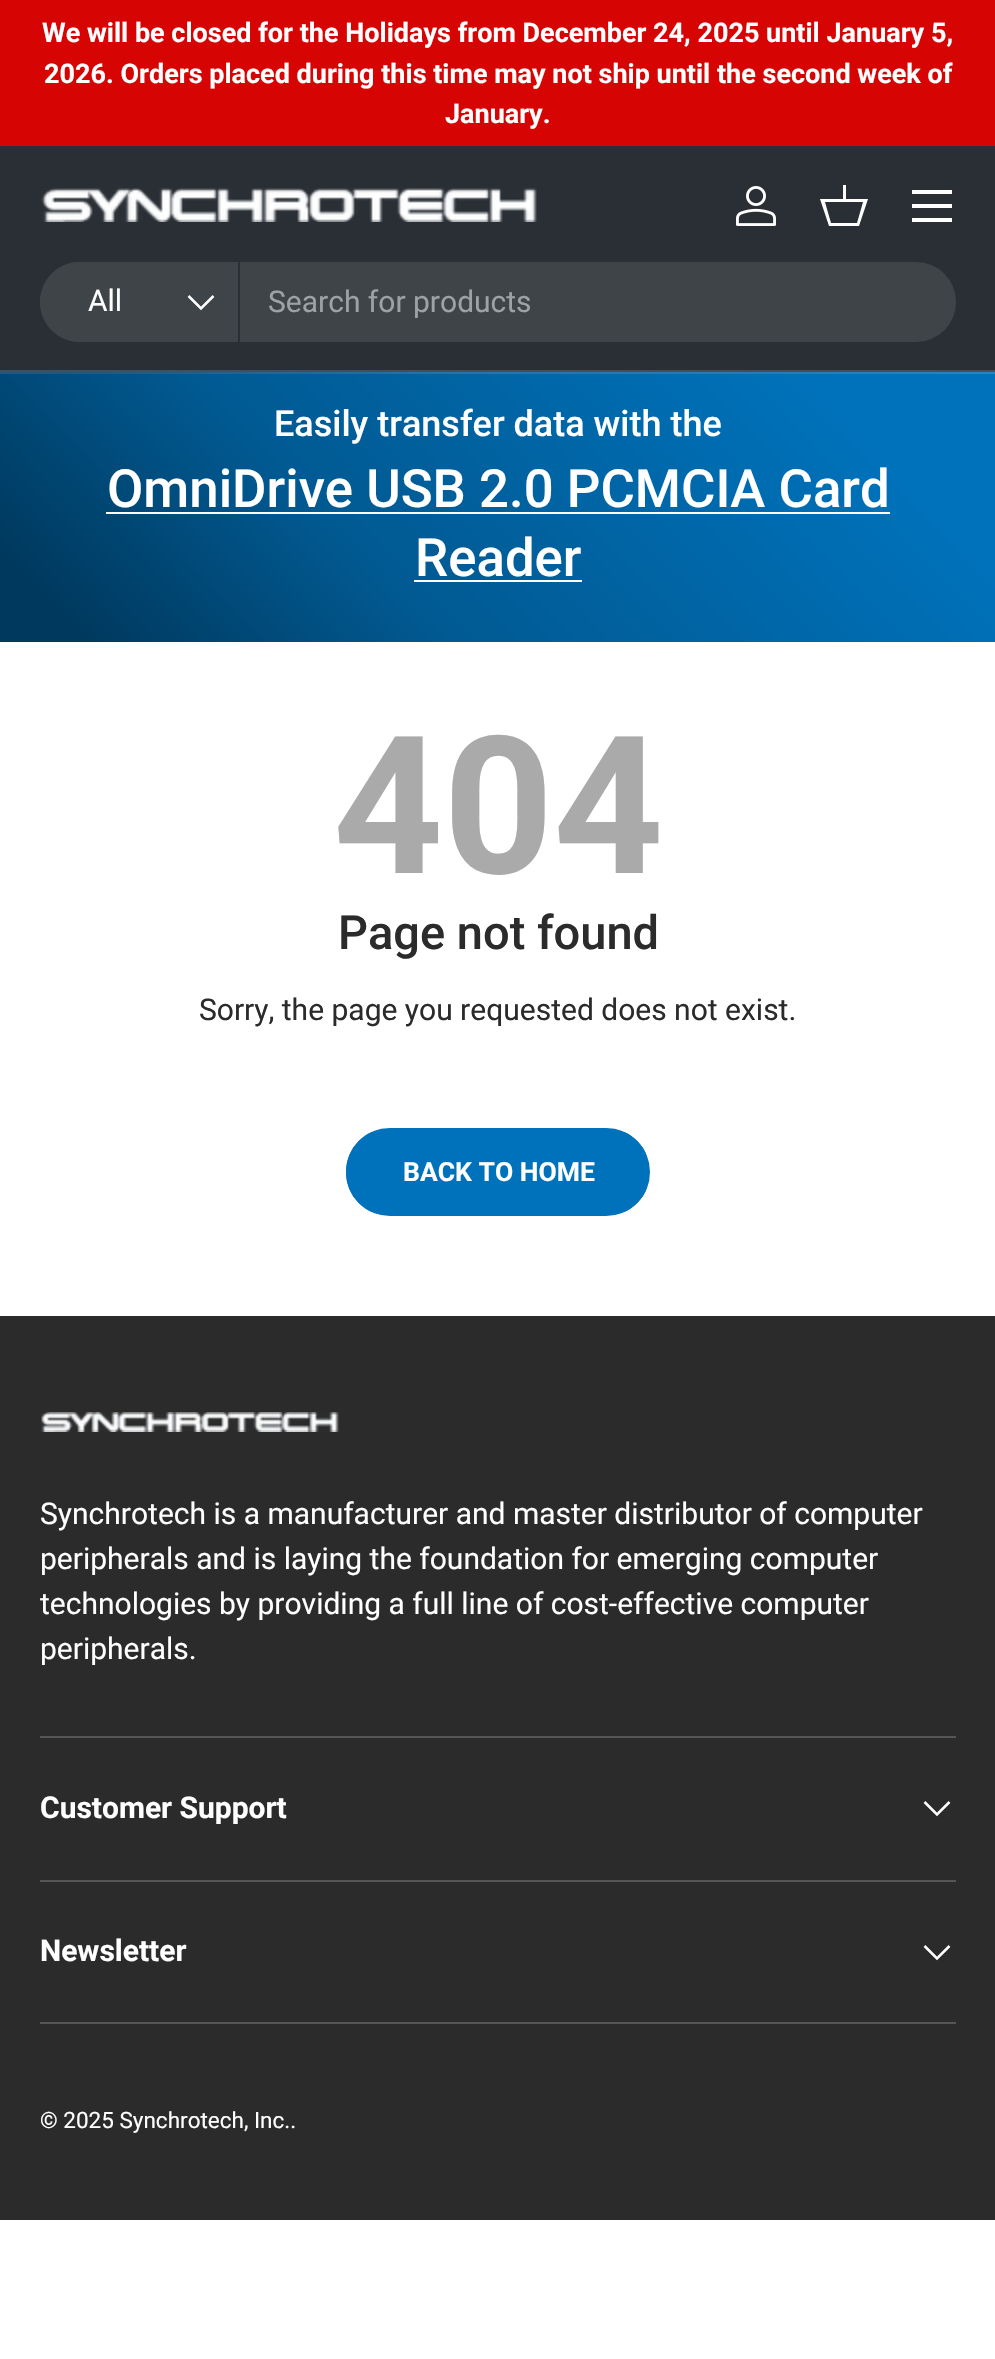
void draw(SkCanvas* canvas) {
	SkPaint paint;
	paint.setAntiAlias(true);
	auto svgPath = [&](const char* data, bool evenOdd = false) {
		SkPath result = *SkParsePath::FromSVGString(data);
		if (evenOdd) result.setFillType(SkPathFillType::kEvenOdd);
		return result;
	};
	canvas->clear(0xffffffff);
	paint.setColor(0xffd70404);
	canvas->drawRect(SkRect::MakeXYWH(0, 0, 995, 146), paint);
	SkFont f1(fontMgr->matchFamilyStyle("Roboto", SkFontStyle::Bold()), 27);
	f1.setSubpixel(true);
	paint.setColor(0xffffffff);
	canvas->drawString("We will be closed for the Holidays from December 24, 2025 until January 5,", 42, 42, f1, paint);
	canvas->drawString("2026. Orders placed during this time may not ship until the second week of", 44, 83, f1, paint);
	canvas->drawString("January.", 445, 123, f1, paint);
	paint.setColor(0xff2a2f35);
	canvas->drawRect(SkRect::MakeXYWH(0, 146, 995, 224), paint);
	paint.setColor(0xff4a4e53);
	canvas->drawRect(SkRect::MakeXYWH(0, 370, 995, 2), paint);
	canvas->drawImageRect(SkImages::DeferredFromEncodedData(SkData::MakeFromFileName("img1.png")), SkRect::MakeXYWH(41, 188, 496, 34), SkSamplingOptions());
	canvas->drawImageRect(SkImages::DeferredFromEncodedData(SkData::MakeFromFileName("img2.png")), SkRect::MakeXYWH(736, 186, 40, 40), SkSamplingOptions());
	paint.setColor(0xffffffff);
	canvas->drawPath(svgPath("M843 199V185H846V199H868L859 226H829L820 199ZM825 202L831 223H857L863 202Z"), paint);
	canvas->drawRect(SkRect::MakeXYWH(912, 190, 40, 4), paint);
	canvas->drawRect(SkRect::MakeXYWH(912, 218, 40, 4), paint);
	canvas->drawRect(SkRect::MakeXYWH(912, 204, 40, 4), paint);
	paint.setColor(0xff3f4449);
	canvas->drawRoundRect(SkRect::MakeXYWH(40, 262, 916, 80), 40, 40, paint);
	canvas->drawPath(svgPath("M80 262H240V342H80C58 342 40 324 40 302C40 280 58 262 80 262Z"), paint);
	paint.setColor(0xff2a2f35);
	canvas->drawRect(SkRect::MakeXYWH(238, 262, 2, 80), paint);
	SkFont f2(fontMgr->matchFamilyStyle("Roboto", SkFontStyle::Normal()), 30);
	f2.setSubpixel(true);
	paint.setColor(0xffffffff);
	canvas->drawString("All", 88, 311, f2, paint);
	paint.setStroke(true);
	paint.setStrokeWidth(2.5);
	canvas->drawPath(svgPath("M213.5 296L201 308.5L188.5 296"), paint);
	paint.setStroke(false);
	paint.setColor(0xff9fa2a4);
	canvas->drawString("Search for products", 268, 312, f2, paint);
	{
		const SkColor colors[] = {0xff265776, 0xff2772a2, 0xff2687c5};
		const float stops[] = {0.07, 0.35, 0.85};
		const SkPoint ends[] = {{173, 554}, {823, -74}};
		paint.setShader(SkGradientShader::MakeLinear(ends, colors, stops, 3, SkTileMode::kClamp));
		paint.setAlpha(255);
	}
	canvas->drawRect(SkRect::MakeXYWH(0, 372, 995, 2), paint);
	{
		const SkColor colors[] = {0xff00395e, 0xff015991, 0xff0072bb};
		const float stops[] = {0.07, 0.35, 0.85};
		const SkPoint ends[] = {{173, 822}, {823, 194}};
		paint.setShader(SkGradientShader::MakeLinear(ends, colors, stops, 3, SkTileMode::kClamp));
		paint.setAlpha(255);
	}
	canvas->drawRect(SkRect::MakeXYWH(0, 374, 995, 268), paint);
	SkFont f3(fontMgr->matchFamilyStyle("Roboto", SkFontStyle(500, SkFontStyle::kNormal_Width, SkFontStyle::kUpright_Slant)), 36);
	f3.setSubpixel(true);
	paint.setShader(nullptr);
	paint.setColor(0xffffffff);
	canvas->drawString("Easily transfer data with the", 274, 436, f3, paint);
	SkFont f4(fontMgr->matchFamilyStyle("Roboto", SkFontStyle(500, SkFontStyle::kNormal_Width, SkFontStyle::kUpright_Slant)), 52.75);
	f4.setSubpixel(true);
	canvas->drawString("OmniDrive USB 2.0 PCMCIA Card", 107, 507, f4, paint);
	canvas->drawRect(SkRect::MakeXYWH(106, 512, 784, 2), paint);
	canvas->drawString("Reader", 415, 576, f4, paint);
	canvas->drawRect(SkRect::MakeXYWH(414, 580, 168, 2), paint);
	SkFont f5(fontMgr->matchFamilyStyle("Roboto", SkFontStyle::Bold()), 192);
	f5.setSubpixel(true);
	paint.setColor(0xffaaaaaa);
	canvas->drawString("404", 333, 873, f5, paint);
	SkFont f6(fontMgr->matchFamilyStyle("Roboto", SkFontStyle(500, SkFontStyle::kNormal_Width, SkFontStyle::kUpright_Slant)), 47);
	f6.setSubpixel(true);
	paint.setColor(0xff2a2b2a);
	canvas->drawString("Page not found", 338, 949, f6, paint);
	canvas->drawString("Sorry, the page you requested does not exist.", 199, 1020, f2, paint);
	canvas->save();
	canvas->clipPath(svgPath("M390 1128H606C630.5 1128 650 1147.5 650 1172C650 1196.5 630.5 1216 606 1216H390C365.5 1216 346 1196.5 346 1172C346 1147.5 365.5 1128 390 1128Z"), true);
	{
		const SkColor colors[] = {0xff2890d2, 0xff0072bb, 0xff0072bb};
		const float stops[] = {0.6, 0.6, 1};
		const SkPoint ends[] = {{-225, 1065}, {629, 1279}};
		paint.setShader(SkGradientShader::MakeLinear(ends, colors, stops, 3, SkTileMode::kClamp));
		paint.setAlpha(255);
	}
	canvas->drawRect(SkRect::MakeXYWH(346, 1132, 300, 80), paint);
	canvas->restore();
	paint.setStroke(true);
	paint.setStrokeWidth(4);
	paint.setShader(nullptr);
	paint.setColor(0xff0072bb);
	canvas->drawRoundRect(SkRect::MakeXYWH(348, 1130, 300, 84), 42, 42, paint);
	SkFont f7(fontMgr->matchFamilyStyle("Roboto", SkFontStyle::Bold()), 26.5);
	f7.setSubpixel(true);
	paint.setStroke(false);
	paint.setColor(0xffffffff);
	canvas->drawString("BACK TO HOME", 403, 1181, f7, paint);
	paint.setColor(0xff2a2b2a);
	canvas->drawRect(SkRect::MakeXYWH(0, 1316, 995, 904), paint);
	canvas->drawImageRect(SkImages::DeferredFromEncodedData(SkData::MakeFromFileName("img3.png")), SkRect::MakeXYWH(41, 1412, 298, 20), SkSamplingOptions());
	paint.setColor(0xffffffff);
	canvas->drawString("Synchrotech is a manufacturer and master distributor of computer", 40, 1524, f2, paint);
	canvas->drawString("peripherals and is laying the foundation for emerging computer", 40, 1569, f2, paint);
	canvas->drawString("technologies by providing a full line of cost-effective computer", 40, 1614, f2, paint);
	canvas->drawString("peripherals.", 40, 1659, f2, paint);
	paint.setColor(0xff555555);
	canvas->drawRect(SkRect::MakeXYWH(40, 1736, 916, 2), paint);
	canvas->drawRect(SkRect::MakeXYWH(40, 1880, 916, 2), paint);
	SkFont f8(fontMgr->matchFamilyStyle("Roboto", SkFontStyle::Bold()), 30);
	f8.setSubpixel(true);
	paint.setColor(0xffffffff);
	canvas->drawString("Customer Support", 40, 1818, f8, paint);
	paint.setStroke(true);
	paint.setStrokeWidth(2.5);
	canvas->drawPath(svgPath("M949.5 1802L937 1814.5L924.5 1802"), paint);
	paint.setStroke(false);
	paint.setColor(0xff555555);
	canvas->drawRect(SkRect::MakeXYWH(40, 2022, 916, 2), paint);
	paint.setColor(0xffffffff);
	canvas->drawString("Newsletter", 40, 1961, f8, paint);
	paint.setStroke(true);
	canvas->drawPath(svgPath("M949.5 1946L937 1958.5L924.5 1946"), paint);
	SkFont f9(fontMgr->matchFamilyStyle("Roboto", SkFontStyle::Normal()), 22.5);
	f9.setSubpixel(true);
	paint.setStroke(false);
	canvas->drawString("© 2025 Synchrotech, Inc..", 40, 2128, f9, paint);
}
